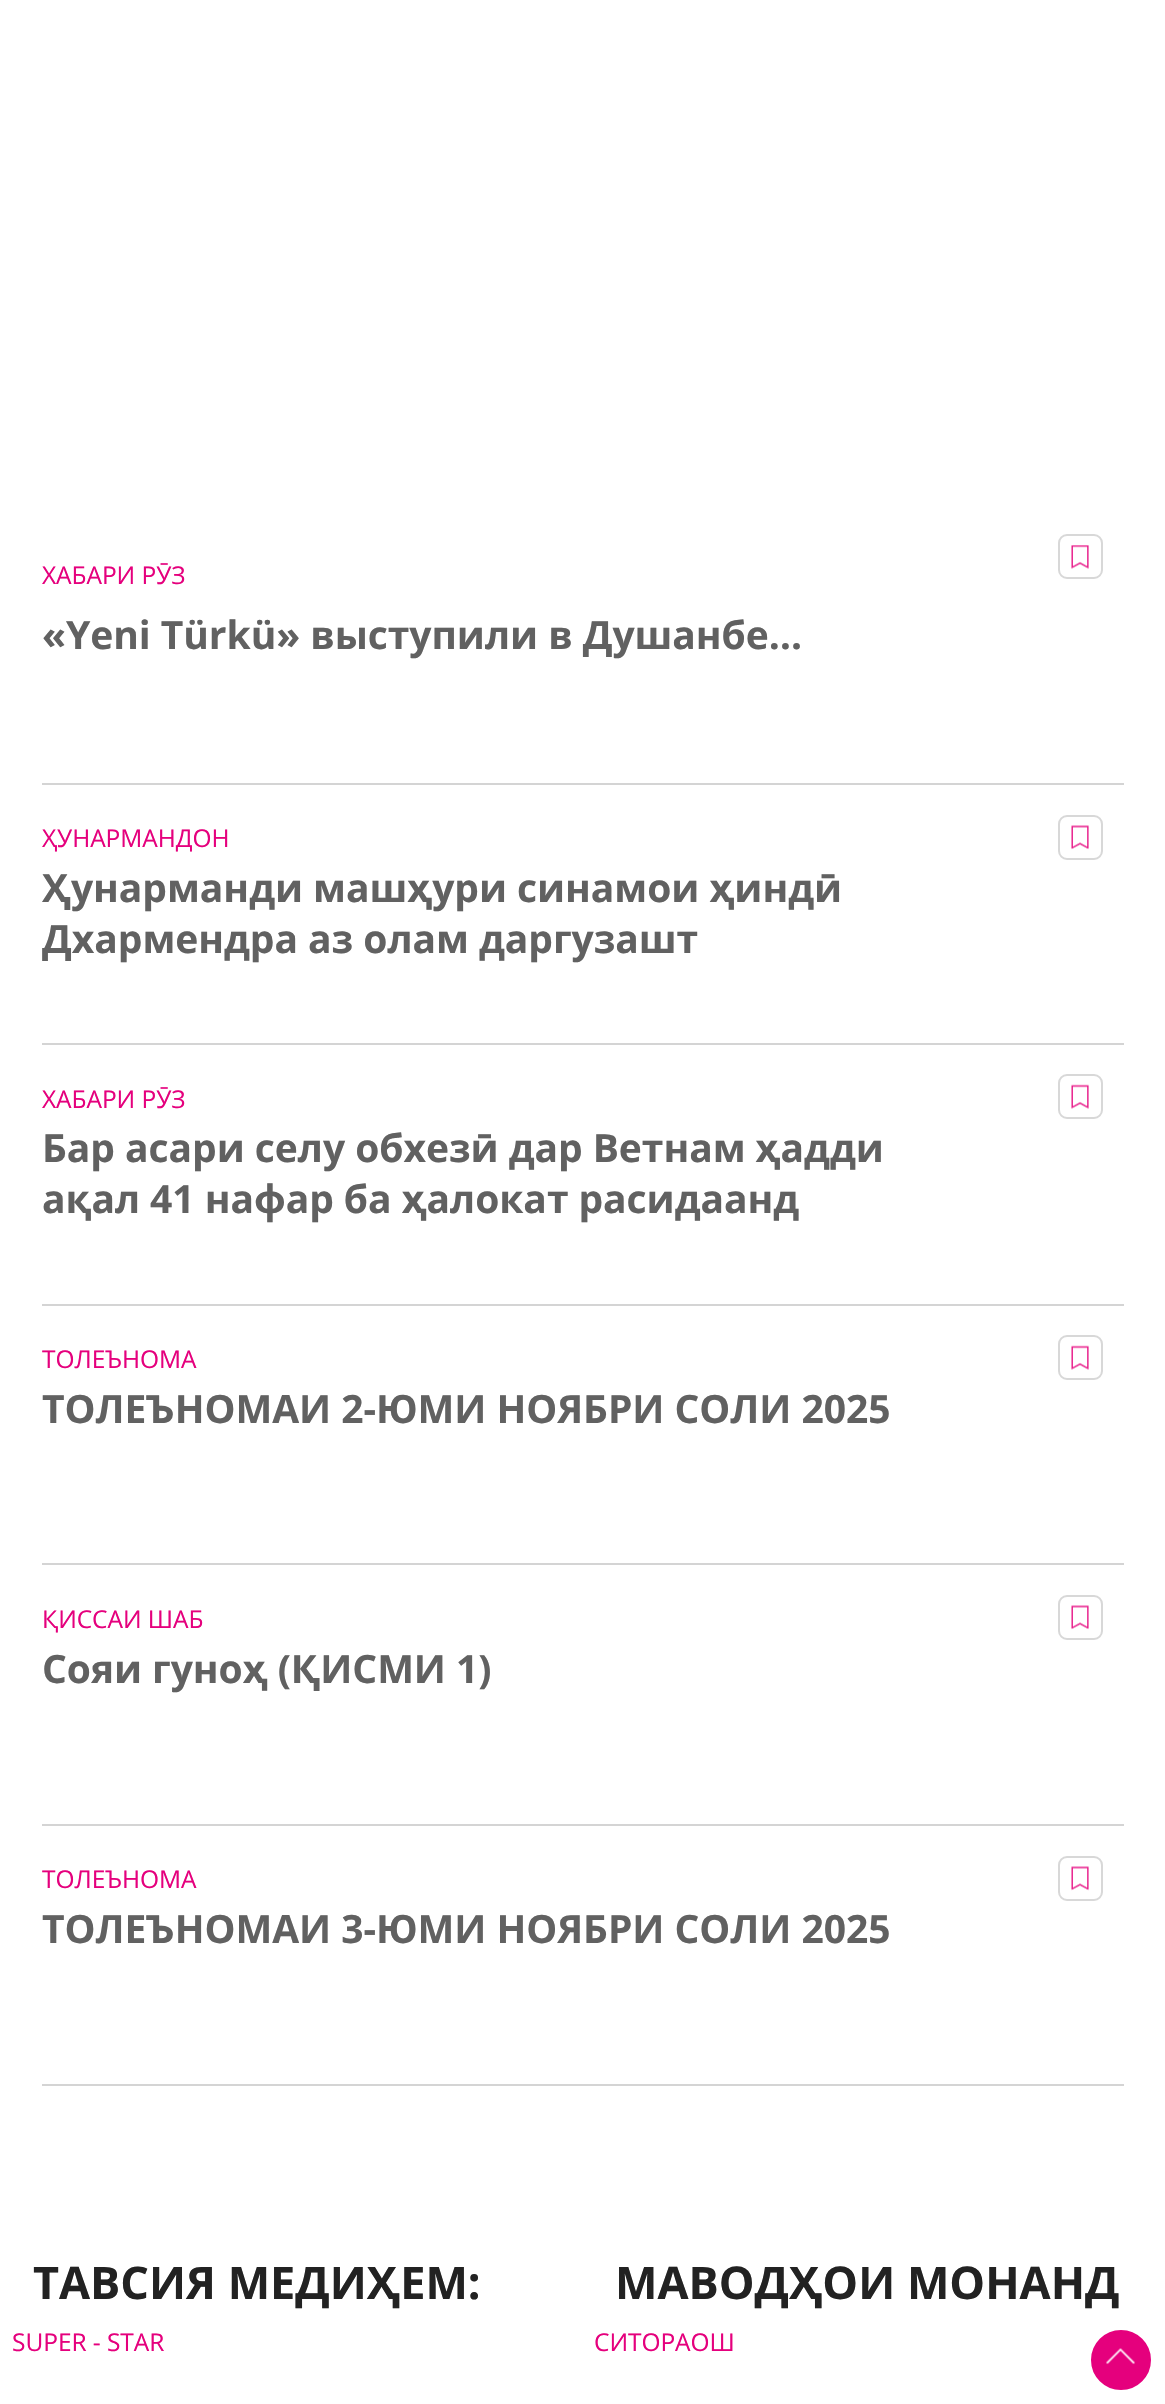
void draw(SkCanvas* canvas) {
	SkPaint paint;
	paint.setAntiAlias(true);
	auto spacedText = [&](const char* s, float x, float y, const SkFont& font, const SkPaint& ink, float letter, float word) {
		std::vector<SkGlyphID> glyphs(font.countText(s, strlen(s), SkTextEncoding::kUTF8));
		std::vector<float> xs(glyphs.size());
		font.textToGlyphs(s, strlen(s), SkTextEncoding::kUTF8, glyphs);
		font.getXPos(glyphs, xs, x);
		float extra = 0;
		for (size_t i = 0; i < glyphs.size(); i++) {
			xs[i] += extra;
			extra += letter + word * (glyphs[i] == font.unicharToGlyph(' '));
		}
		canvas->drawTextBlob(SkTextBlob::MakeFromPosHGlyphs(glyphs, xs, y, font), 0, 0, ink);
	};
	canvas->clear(0xffffffff);
	paint.setColor(0xffd4d4d4);
	canvas->drawRect(SkRect::MakeXYWH(42, 783, 1082, 2), paint);
	paint.setStroke(true);
	paint.setStrokeWidth(2);
	paint.setColor(0xffd8d8d8);
	canvas->drawRoundRect(SkRect::MakeXYWH(1059, 535, 43, 43), 8, 8, paint);
	canvas->drawImageRect(SkImages::DeferredFromEncodedData(SkData::MakeFromFileName("img1.png")), SkRect::MakeXYWH(1071, 545, 18, 24), SkSamplingOptions());
	SkFont f1(fontMgr->matchFamilyStyle("Open Sans", SkFontStyle::Normal()), 24.5);
	f1.setSubpixel(true);
	paint.setStroke(false);
	paint.setColor(0xffe5007d);
	spacedText("ХАБАРИ РӮЗ", 42, 584, f1, paint, -0.05, 0);
	SkFont f2(fontMgr->matchFamilyStyle("Open Sans", SkFontStyle::Bold()), 39);
	f2.setSubpixel(true);
	paint.setColor(0xff616161);
	spacedText("«Yeni Türkü» выступили в Душанбе…", 42, 649, f2, paint, -0.05, 0);
	paint.setColor(0xffd4d4d4);
	canvas->drawRect(SkRect::MakeXYWH(42, 1043, 1082, 2), paint);
	paint.setColor(0xffe5007d);
	spacedText("ҲУНАРМАНДОН", 42, 847, f1, paint, -0.05, 0);
	paint.setColor(0xff616161);
	spacedText("Ҳунарманди машҳури синамои ҳиндӣ", 42, 902, f2, paint, -0.05, 0);
	spacedText("Дхармендра аз олам даргузашт", 42, 953, f2, paint, -0.05, 0);
	paint.setStroke(true);
	paint.setColor(0xffd8d8d8);
	canvas->drawRoundRect(SkRect::MakeXYWH(1059, 816, 43, 43), 8, 8, paint);
	canvas->drawImageRect(SkImages::DeferredFromEncodedData(SkData::MakeFromFileName("img2.png")), SkRect::MakeXYWH(1071, 825, 18, 25), SkSamplingOptions());
	paint.setStroke(false);
	paint.setColor(0xffd4d4d4);
	canvas->drawRect(SkRect::MakeXYWH(42, 1304, 1082, 2), paint);
	paint.setColor(0xffe5007d);
	spacedText("ХАБАРИ РӮЗ", 42, 1108, f1, paint, -0.05, 0);
	paint.setColor(0xff616161);
	spacedText("Бар асари селу обхезӣ дар Ветнам ҳадди", 42, 1162, f2, paint, -0.05, 0);
	spacedText("ақал 41 нафар ба ҳалокат расидаанд", 42, 1213, f2, paint, -0.05, 0);
	paint.setStroke(true);
	paint.setColor(0xffd8d8d8);
	canvas->drawRoundRect(SkRect::MakeXYWH(1059, 1075, 43, 43), 8, 8, paint);
	canvas->drawImageRect(SkImages::DeferredFromEncodedData(SkData::MakeFromFileName("img3.png")), SkRect::MakeXYWH(1071, 1084, 18, 25), SkSamplingOptions());
	paint.setStroke(false);
	paint.setColor(0xffd4d4d4);
	canvas->drawRect(SkRect::MakeXYWH(42, 1563, 1082, 2), paint);
	paint.setColor(0xffe5007d);
	spacedText("ТОЛЕЪНОМА", 42, 1368, f1, paint, -0.05, 0);
	paint.setColor(0xff616161);
	spacedText("ТОЛЕЪНОМАИ 2-ЮМИ НОЯБРИ СОЛИ 2025", 42, 1423, f2, paint, -0.05, 0);
	paint.setStroke(true);
	paint.setColor(0xffd8d8d8);
	canvas->drawRoundRect(SkRect::MakeXYWH(1059, 1336, 43, 43), 8, 8, paint);
	canvas->drawImageRect(SkImages::DeferredFromEncodedData(SkData::MakeFromFileName("img3.png")), SkRect::MakeXYWH(1071, 1345, 18, 25), SkSamplingOptions());
	paint.setStroke(false);
	paint.setColor(0xffd4d4d4);
	canvas->drawRect(SkRect::MakeXYWH(42, 1824, 1082, 2), paint);
	paint.setColor(0xffe5007d);
	spacedText("ҚИССАИ ШАБ", 42, 1628, f1, paint, -0.05, 0);
	paint.setColor(0xff616161);
	spacedText("Сояи гуноҳ (ҚИСМИ 1)", 42, 1683, f2, paint, -0.05, 0);
	paint.setStroke(true);
	paint.setColor(0xffd8d8d8);
	canvas->drawRoundRect(SkRect::MakeXYWH(1059, 1596, 43, 43), 8, 8, paint);
	canvas->drawImageRect(SkImages::DeferredFromEncodedData(SkData::MakeFromFileName("img2.png")), SkRect::MakeXYWH(1071, 1605, 18, 25), SkSamplingOptions());
	paint.setStroke(false);
	paint.setColor(0xffd4d4d4);
	canvas->drawRect(SkRect::MakeXYWH(42, 2084, 1082, 2), paint);
	paint.setColor(0xffe5007d);
	spacedText("ТОЛЕЪНОМА", 42, 1888, f1, paint, -0.05, 0);
	paint.setColor(0xff616161);
	spacedText("ТОЛЕЪНОМАИ 3-ЮМИ НОЯБРИ СОЛИ 2025", 42, 1943, f2, paint, -0.05, 0);
	paint.setStroke(true);
	paint.setColor(0xffd8d8d8);
	canvas->drawRoundRect(SkRect::MakeXYWH(1059, 1857, 43, 43), 8, 8, paint);
	canvas->drawImageRect(SkImages::DeferredFromEncodedData(SkData::MakeFromFileName("img4.png")), SkRect::MakeXYWH(1071, 1866, 18, 25), SkSamplingOptions());
	SkFont f3(fontMgr->matchFamilyStyle("Open Sans", SkFontStyle::Bold()), 45);
	f3.setSubpixel(true);
	paint.setStroke(false);
	paint.setColor(0xff222222);
	canvas->drawString("ТАВСИЯ МЕДИҲЕМ:", 33, 2299, f3, paint);
	paint.setColor(0xffe5007d);
	spacedText("SUPER - STAR", 12, 2351, f1, paint, -0.05, 0);
	paint.setColor(0xff222222);
	canvas->drawString("МАВОДҲОИ МОНАНД", 615, 2299, f3, paint);
	paint.setColor(0xffe5007d);
	spacedText("СИТОРАОШ", 594, 2351, f1, paint, -0.05, 0);
	canvas->drawCircle(1121, 2360, 29, paint);
	paint.setStroke(true);
	canvas->drawCircle(1121, 2360, 29, paint);
	canvas->drawImageRect(SkImages::DeferredFromEncodedData(SkData::MakeFromFileName("img5.png")), SkRect::MakeXYWH(1106, 2348, 29, 17), SkSamplingOptions());
}
